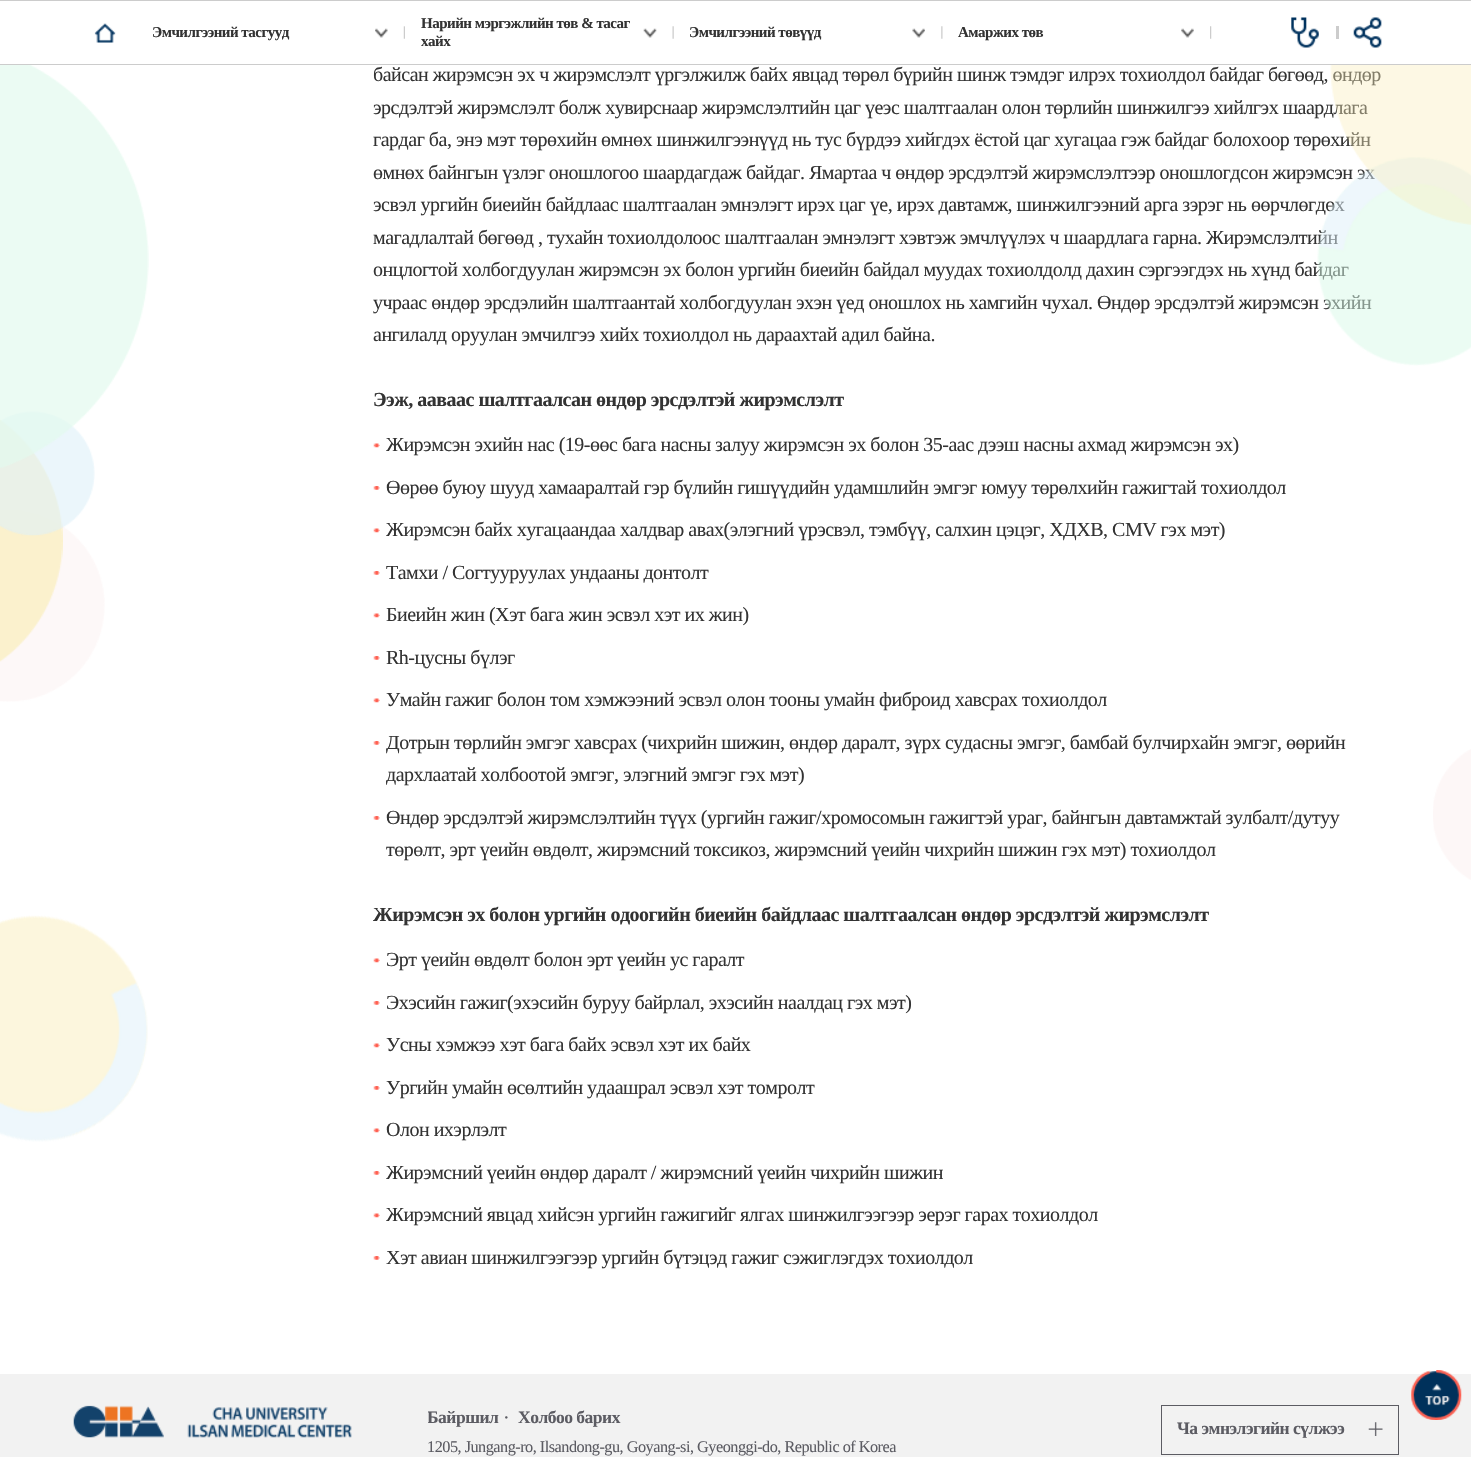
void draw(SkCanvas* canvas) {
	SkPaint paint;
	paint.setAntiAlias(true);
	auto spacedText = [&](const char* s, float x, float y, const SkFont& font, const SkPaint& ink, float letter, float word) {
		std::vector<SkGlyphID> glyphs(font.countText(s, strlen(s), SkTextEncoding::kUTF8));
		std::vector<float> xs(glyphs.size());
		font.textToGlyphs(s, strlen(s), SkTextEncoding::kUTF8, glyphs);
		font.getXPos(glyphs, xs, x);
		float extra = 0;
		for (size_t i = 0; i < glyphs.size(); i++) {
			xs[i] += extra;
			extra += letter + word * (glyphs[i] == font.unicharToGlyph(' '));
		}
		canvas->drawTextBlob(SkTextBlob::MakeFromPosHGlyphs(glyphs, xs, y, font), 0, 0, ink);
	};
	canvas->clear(0xffffffff);
	canvas->drawImageRect(SkImages::DeferredFromEncodedData(SkData::MakeFromFileName("img19.png")), SkRect::MakeXYWH(0, 509, 105, 193), SkSamplingOptions());
	canvas->drawImageRect(SkImages::DeferredFromEncodedData(SkData::MakeFromFileName("img18.png")), SkRect::MakeXYWH(0, 419, 63, 243), SkSamplingOptions());
	canvas->drawImageRect(SkImages::DeferredFromEncodedData(SkData::MakeFromFileName("img17.png")), SkRect::MakeXYWH(0, 411, 95, 125), SkSamplingOptions());
	canvas->drawImageRect(SkImages::DeferredFromEncodedData(SkData::MakeFromFileName("img1.png")), SkRect::MakeXYWH(0, 65, 149, 403), SkSamplingOptions());
	paint.setColor(0xffcccccc);
	canvas->drawRect(SkRect::MakeXYWH(0, 0, 1471, 1), paint);
	canvas->drawRect(SkRect::MakeXYWH(0, 64, 1471, 1), paint);
	canvas->drawImageRect(SkImages::DeferredFromEncodedData(SkData::MakeFromFileName("img2.png")), SkRect::MakeXYWH(94, 23, 22, 20), SkSamplingOptions());
	canvas->drawImageRect(SkImages::DeferredFromEncodedData(SkData::MakeFromFileName("img3.png")), SkRect::MakeXYWH(403, 26, 2, 13), SkSamplingOptions());
	canvas->drawImageRect(SkImages::DeferredFromEncodedData(SkData::MakeFromFileName("img4.png")), SkRect::MakeXYWH(375, 28, 13, 10), SkSamplingOptions());
	SkFont f1(fontMgr->matchFamilyStyle("Liberation Serif", SkFontStyle::Bold()), 15);
	f1.setSubpixel(true);
	paint.setColor(0xff333333);
	spacedText("Эмчилгээний тасгууд", 152, 37, f1, paint, -0.5, 0);
	canvas->drawImageRect(SkImages::DeferredFromEncodedData(SkData::MakeFromFileName("img5.png")), SkRect::MakeXYWH(672, 26, 2, 13), SkSamplingOptions());
	canvas->drawImageRect(SkImages::DeferredFromEncodedData(SkData::MakeFromFileName("img6.png")), SkRect::MakeXYWH(643, 28, 14, 10), SkSamplingOptions());
	spacedText("Нарийн мэргэжлийн төв & тасаг", 421, 28, f1, paint, -0.5, 0);
	spacedText("хайх", 421, 46, f1, paint, -0.5, 0);
	canvas->drawImageRect(SkImages::DeferredFromEncodedData(SkData::MakeFromFileName("img7.png")), SkRect::MakeXYWH(941, 26, 2, 13), SkSamplingOptions());
	canvas->drawImageRect(SkImages::DeferredFromEncodedData(SkData::MakeFromFileName("img8.png")), SkRect::MakeXYWH(912, 28, 13, 10), SkSamplingOptions());
	spacedText("Эмчилгээний төвүүд", 689, 37, f1, paint, -0.5, 0);
	canvas->drawImageRect(SkImages::DeferredFromEncodedData(SkData::MakeFromFileName("img9.png")), SkRect::MakeXYWH(1210, 26, 2, 13), SkSamplingOptions());
	canvas->drawImageRect(SkImages::DeferredFromEncodedData(SkData::MakeFromFileName("img10.png")), SkRect::MakeXYWH(1181, 28, 13, 10), SkSamplingOptions());
	spacedText("Амаржих төв", 958, 37, f1, paint, -0.5, 0);
	canvas->drawImageRect(SkImages::DeferredFromEncodedData(SkData::MakeFromFileName("img11.png")), SkRect::MakeXYWH(1291, 17, 28, 31), SkSamplingOptions());
	paint.setColor(0xffcccccc);
	canvas->drawRect(SkRect::MakeXYWH(1336, 26, 3, 13), paint);
	canvas->drawImageRect(SkImages::DeferredFromEncodedData(SkData::MakeFromFileName("img12.png")), SkRect::MakeXYWH(1353, 17, 29, 31), SkSamplingOptions());
	SkFont f2(fontMgr->matchFamilyStyle("Liberation Serif", SkFontStyle::Normal()), 20);
	f2.setSubpixel(true);
	paint.setColor(0xff333333);
	spacedText("байсан жирэмсэн эх ч жирэмслэлт үргэлжилж байх явцад төрөл бүрийн шинж тэмдэг илрэх тохиолдол байдаг бөгөөд, өндөр", 373, 81, f2, paint, -0.5, 0);
	spacedText("эрсдэлтэй жирэмслэлт болж хувирснаар жирэмслэлтийн цаг үеэс шалтгаалан олон төрлийн шинжилгээ хийлгэх шаардлага", 373, 114, f2, paint, -0.5, 0);
	spacedText("гардаг ба, энэ мэт төрөхийн өмнөх шинжилгээнүүд нь тус бүрдээ хийгдэх ёстой цаг хугацаа гэж байдаг болохоор төрөхийн", 373, 146, f2, paint, -0.5, 0);
	spacedText("өмнөх байнгын үзлэг оношлогоо шаардагдаж байдаг. Ямартаа ч өндөр эрсдэлтэй жирэмслэлтээр оношлогдсон жирэмсэн эх", 373, 179, f2, paint, -0.5, 0);
	spacedText("эсвэл ургийн биеийн байдлаас шалтгаалан эмнэлэгт ирэх цаг үе, ирэх давтамж, шинжилгээний арга зэрэг нь өөрчлөгдөх", 373, 211, f2, paint, -0.5, 0);
	spacedText("магадлалтай бөгөөд , тухайн тохиолдолоос шалтгаалан эмнэлэгт хэвтэж эмчлүүлэх ч шаардлага гарна. Жирэмслэлтийн", 373, 244, f2, paint, -0.5, 0);
	spacedText("онцлогтой холбогдуулан жирэмсэн эх болон ургийн биеийн байдал муудах тохиолдолд дахин сэргээгдэх нь хүнд байдаг", 373, 276, f2, paint, -0.5, 0);
	spacedText("учраас өндөр эрсдэлийн шалтгаантай холбогдуулан эхэн үед оношлох нь хамгийн чухал. Өндөр эрсдэлтэй жирэмсэн эхийн", 373, 309, f2, paint, -0.5, 0);
	spacedText("ангилалд оруулан эмчилгээ хийх тохиолдол нь дараахтай адил байна.", 373, 341, f2, paint, -0.5, 0);
	SkFont f3(fontMgr->matchFamilyStyle("Liberation Serif", SkFontStyle::Bold()), 20);
	f3.setSubpixel(true);
	spacedText("Ээж, ааваас шалтгаалсан өндөр эрсдэлтэй жирэмслэлт", 373, 406, f3, paint, -0.5, 0);
	canvas->drawImageRect(SkImages::DeferredFromEncodedData(SkData::MakeFromFileName("img13.png")), SkRect::MakeXYWH(373, 443, 7, 5), SkSamplingOptions());
	spacedText("Жирэмсэн эхийн нас (19-өөс бага насны залуу жирэмсэн эх болон 35-аас дээш насны ахмад жирэмсэн эх)", 386, 451, f2, paint, -0.5, 0);
	canvas->drawImageRect(SkImages::DeferredFromEncodedData(SkData::MakeFromFileName("img14.png")), SkRect::MakeXYWH(373, 486, 7, 4), SkSamplingOptions());
	spacedText("Өөрөө буюу шууд хамааралтай гэр бүлийн гишүүдийн удамшлийн эмгэг юмуу төрөлхийн гажигтай тохиолдол", 386, 494, f2, paint, -0.5, 0);
	canvas->drawImageRect(SkImages::DeferredFromEncodedData(SkData::MakeFromFileName("img13.png")), SkRect::MakeXYWH(373, 528, 7, 5), SkSamplingOptions());
	spacedText("Жирэмсэн байх хугацаандаа халдвар авах(элэгний үрэсвэл, тэмбүү, салхин цэцэг, ХДХВ, CMV гэх мэт)", 386, 536, f2, paint, -0.5, 0);
	canvas->drawImageRect(SkImages::DeferredFromEncodedData(SkData::MakeFromFileName("img14.png")), SkRect::MakeXYWH(373, 571, 7, 4), SkSamplingOptions());
	spacedText("Тамхи / Согтууруулах ундааны донтолт", 386, 579, f2, paint, -0.5, 0);
	canvas->drawImageRect(SkImages::DeferredFromEncodedData(SkData::MakeFromFileName("img13.png")), SkRect::MakeXYWH(373, 613, 7, 5), SkSamplingOptions());
	spacedText("Биеийн жин (Хэт бага жин эсвэл хэт их жин)", 386, 621, f2, paint, -0.5, 0);
	canvas->drawImageRect(SkImages::DeferredFromEncodedData(SkData::MakeFromFileName("img14.png")), SkRect::MakeXYWH(373, 656, 7, 4), SkSamplingOptions());
	spacedText("Rh-цусны бүлэг", 386, 664, f2, paint, -0.5, 0);
	canvas->drawImageRect(SkImages::DeferredFromEncodedData(SkData::MakeFromFileName("img13.png")), SkRect::MakeXYWH(373, 698, 7, 5), SkSamplingOptions());
	spacedText("Умайн гажиг болон том хэмжээний эсвэл олон тооны умайн фиброид хавсрах тохиолдол", 386, 706, f2, paint, -0.5, 0);
	canvas->drawImageRect(SkImages::DeferredFromEncodedData(SkData::MakeFromFileName("img14.png")), SkRect::MakeXYWH(373, 741, 7, 4), SkSamplingOptions());
	spacedText("Дотрын төрлийн эмгэг хавсрах (чихрийн шижин, өндөр даралт, зүрх судасны эмгэг, бамбай булчирхайн эмгэг, өөрийн", 386, 749, f2, paint, -0.5, 0);
	spacedText("дархлаатай холбоотой эмгэг, элэгний эмгэг гэх мэт)", 386, 781, f2, paint, -0.5, 0);
	canvas->drawImageRect(SkImages::DeferredFromEncodedData(SkData::MakeFromFileName("img14.png")), SkRect::MakeXYWH(373, 816, 7, 4), SkSamplingOptions());
	spacedText("Өндөр эрсдэлтэй жирэмслэлтийн түүх (ургийн гажиг/хромосомын гажигтэй ураг, байнгын давтамжтай зулбалт/дутуу", 386, 824, f2, paint, -0.5, 0);
	spacedText("төрөлт, эрт үеийн өвдөлт, жирэмсний токсикоз, жирэмсний үеийн чихрийн шижин гэх мэт) тохиолдол", 386, 856, f2, paint, -0.5, 0);
	spacedText("Жирэмсэн эх болон ургийн одоогийн биеийн байдлаас шалтгаалсан өндөр эрсдэлтэй жирэмслэлт", 373, 921, f3, paint, -0.5, 0);
	canvas->drawImageRect(SkImages::DeferredFromEncodedData(SkData::MakeFromFileName("img13.png")), SkRect::MakeXYWH(373, 958, 7, 5), SkSamplingOptions());
	spacedText("Эрт үеийн өвдөлт болон эрт үеийн ус гаралт", 386, 966, f2, paint, -0.5, 0);
	canvas->drawImageRect(SkImages::DeferredFromEncodedData(SkData::MakeFromFileName("img14.png")), SkRect::MakeXYWH(373, 1001, 7, 4), SkSamplingOptions());
	spacedText("Эхэсийн гажиг(эхэсийн буруу байрлал, эхэсийн наалдац гэх мэт)", 386, 1009, f2, paint, -0.5, 0);
	canvas->drawImageRect(SkImages::DeferredFromEncodedData(SkData::MakeFromFileName("img13.png")), SkRect::MakeXYWH(373, 1043, 7, 5), SkSamplingOptions());
	spacedText("Усны хэмжээ хэт бага байх эсвэл хэт их байх", 386, 1051, f2, paint, -0.5, 0);
	canvas->drawImageRect(SkImages::DeferredFromEncodedData(SkData::MakeFromFileName("img14.png")), SkRect::MakeXYWH(373, 1086, 7, 4), SkSamplingOptions());
	spacedText("Ургийн умайн өсөлтийн удаашрал эсвэл хэт томролт", 386, 1094, f2, paint, -0.5, 0);
	canvas->drawImageRect(SkImages::DeferredFromEncodedData(SkData::MakeFromFileName("img13.png")), SkRect::MakeXYWH(373, 1128, 7, 5), SkSamplingOptions());
	spacedText("Олон ихэрлэлт", 386, 1136, f2, paint, -0.5, 0);
	canvas->drawImageRect(SkImages::DeferredFromEncodedData(SkData::MakeFromFileName("img14.png")), SkRect::MakeXYWH(373, 1171, 7, 4), SkSamplingOptions());
	spacedText("Жирэмсний үеийн өндөр даралт / жирэмсний үеийн чихрийн шижин", 386, 1179, f2, paint, -0.5, 0);
	canvas->drawImageRect(SkImages::DeferredFromEncodedData(SkData::MakeFromFileName("img13.png")), SkRect::MakeXYWH(373, 1213, 7, 5), SkSamplingOptions());
	spacedText("Жирэмсний явцад хийсэн ургийн гажигийг ялгах шинжилгээгээр эерэг гарах тохиолдол", 386, 1221, f2, paint, -0.5, 0);
	canvas->drawImageRect(SkImages::DeferredFromEncodedData(SkData::MakeFromFileName("img14.png")), SkRect::MakeXYWH(373, 1256, 7, 4), SkSamplingOptions());
	spacedText("Хэт авиан шинжилгээгээр ургийн бүтэцэд гажиг сэжиглэгдэх тохиолдол", 386, 1264, f2, paint, -0.5, 0);
	canvas->drawImageRect(SkImages::DeferredFromEncodedData(SkData::MakeFromFileName("img16.png")), SkRect::MakeXYWH(1317, 157, 154, 209), SkSamplingOptions());
	canvas->drawImageRect(SkImages::DeferredFromEncodedData(SkData::MakeFromFileName("img15.png")), SkRect::MakeXYWH(1330, 65, 141, 160), SkSamplingOptions());
	canvas->drawImageRect(SkImages::DeferredFromEncodedData(SkData::MakeFromFileName("img20.png")), SkRect::MakeXYWH(1433, 749, 38, 131), SkSamplingOptions());
	canvas->drawImageRect(SkImages::DeferredFromEncodedData(SkData::MakeFromFileName("img21.png")), SkRect::MakeXYWH(0, 915, 148, 227), SkSamplingOptions());
	paint.setColor(0xfff2f2f2);
	canvas->drawRect(SkRect::MakeXYWH(0, 1374, 1471, 83), paint);
	canvas->drawImageRect(SkImages::DeferredFromEncodedData(SkData::MakeFromFileName("img22.png")), SkRect::MakeXYWH(73, 1405, 279, 33), SkSamplingOptions());
	canvas->save();
	canvas->clipRect(SkRect::MakeXYWH(428, 1405, 468, 23));
	SkFont f4(fontMgr->matchFamilyStyle("Liberation Serif", SkFontStyle::Bold()), 17.5);
	f4.setSubpixel(true);
	paint.setColor(0xff5c5c63);
	spacedText("Байршил", 427, 1423, f4, paint, -0.5, 0);
	canvas->restore();
	spacedText("·", 503, 1424, f2, paint, -0.5, 0);
	spacedText("Холбоо барих", 518, 1423, f4, paint, -0.5, 0);
	SkFont f5(fontMgr->matchFamilyStyle("Liberation Serif", SkFontStyle::Normal()), 16.25);
	f5.setSubpixel(true);
	spacedText("1205, Jungang-ro, Ilsandong-gu, Goyang-si, Gyeonggi-do, Republic of Korea", 427, 1452, f5, paint, -0.5, 0);
	paint.setStroke(true);
	paint.setStrokeWidth(1);
	canvas->drawRect(SkRect::MakeXYWH(1161.5, 1405.5, 237, 49), paint);
	paint.setStroke(false);
	spacedText("Ча эмнэлэгийн сүлжээ", 1177, 1434, f4, paint, -0.5, 0);
	canvas->drawImageRect(SkImages::DeferredFromEncodedData(SkData::MakeFromFileName("img23.png")), SkRect::MakeXYWH(1368, 1422, 15, 14), SkSamplingOptions());
	canvas->drawImageRect(SkImages::DeferredFromEncodedData(SkData::MakeFromFileName("img24.png")), SkRect::MakeXYWH(1412, 1371, 49, 49), SkSamplingOptions());
	canvas->drawImageRect(SkImages::DeferredFromEncodedData(SkData::MakeFromFileName("img25.png")), SkRect::MakeXYWH(1411, 1370, 51, 50), SkSamplingOptions());
}
